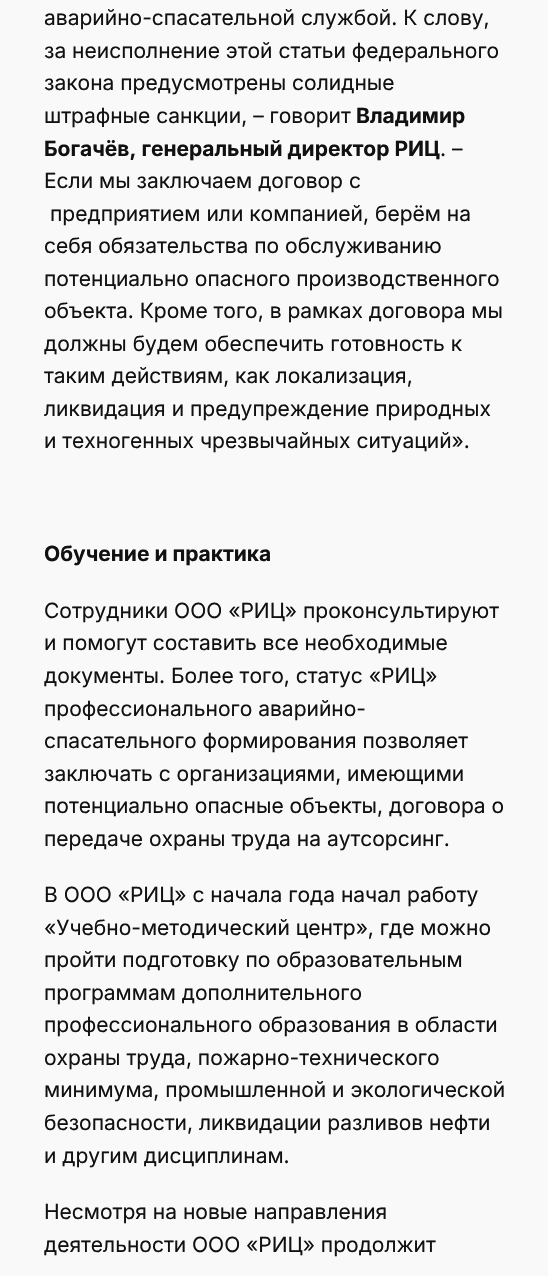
void draw(SkCanvas* canvas) {
	SkPaint paint;
	paint.setAntiAlias(true);
	canvas->clear(0xfff9f9f9);
	SkFont f1(fontMgr->matchFamilyStyle("Inter", SkFontStyle::Normal()), 21);
	f1.setSubpixel(true);
	paint.setColor(0xff111111);
	canvas->drawString("аварийно-спасательной службой. К слову,", 44, 25, f1, paint);
	canvas->drawString("за неисполнение этой статьи федерального", 44, 58, f1, paint);
	canvas->drawString("закона предусмотрены солидные", 44, 90, f1, paint);
	canvas->drawString("штрафные санкции, – говорит", 44, 123, f1, paint);
	SkFont f2(fontMgr->matchFamilyStyle("Inter", SkFontStyle::Bold()), 21);
	f2.setSubpixel(true);
	canvas->drawString("Владимир", 356, 123, f2, paint);
	canvas->drawString("Богачёв, генеральный директор РИЦ", 44, 156, f2, paint);
	canvas->drawString(". –", 440, 156, f1, paint);
	canvas->drawString("Если мы заключаем договор с", 44, 188, f1, paint);
	canvas->drawString("предприятием или компанией, берём на", 50, 221, f1, paint);
	canvas->drawString("себя обязательства по обслуживанию", 44, 253, f1, paint);
	canvas->drawString("потенциально опасного производственного", 44, 286, f1, paint);
	canvas->drawString("объекта. Кроме того, в рамках договора мы", 44, 318, f1, paint);
	canvas->drawString("должны будем обеспечить готовность к", 44, 351, f1, paint);
	canvas->drawString("таким действиям, как локализация,", 44, 383, f1, paint);
	canvas->drawString("ликвидация и предупреждение природных", 44, 416, f1, paint);
	canvas->drawString("и техногенных чрезвычайных ситуаций».", 44, 448, f1, paint);
	canvas->drawString("Обучение и практика", 44, 561, f2, paint);
	canvas->drawString("Сотрудники ООО «РИЦ» проконсультируют", 44, 618, f1, paint);
	canvas->drawString("и помогут составить все необходимые", 44, 650, f1, paint);
	canvas->drawString("документы. Более того, статус «РИЦ»", 44, 683, f1, paint);
	canvas->drawString("профессионального аварийно-", 44, 716, f1, paint);
	canvas->drawString("спасательного формирования позволяет", 44, 748, f1, paint);
	canvas->drawString("заключать с организациями, имеющими", 44, 781, f1, paint);
	canvas->drawString("потенциально опасные объекты, договора о", 44, 813, f1, paint);
	canvas->drawString("передаче охраны труда на аутсорсинг.", 44, 846, f1, paint);
	canvas->drawString("В ООО «РИЦ» с начала года начал работу", 44, 902, f1, paint);
	canvas->drawString("«Учебно-методический центр», где можно", 44, 935, f1, paint);
	canvas->drawString("пройти подготовку по образовательным", 44, 967, f1, paint);
	canvas->drawString("программам дополнительного", 44, 1000, f1, paint);
	canvas->drawString("профессионального образования в области", 44, 1032, f1, paint);
	canvas->drawString("охраны труда, пожарно-технического", 44, 1065, f1, paint);
	canvas->drawString("минимума, промышленной и экологической", 44, 1097, f1, paint);
	canvas->drawString("безопасности, ликвидации разливов нефти", 44, 1130, f1, paint);
	canvas->drawString("и другим дисциплинам.", 44, 1163, f1, paint);
	canvas->drawString("Несмотря на новые направления", 44, 1219, f1, paint);
	canvas->drawString("деятельности ООО «РИЦ» продолжит", 44, 1252, f1, paint);
}
